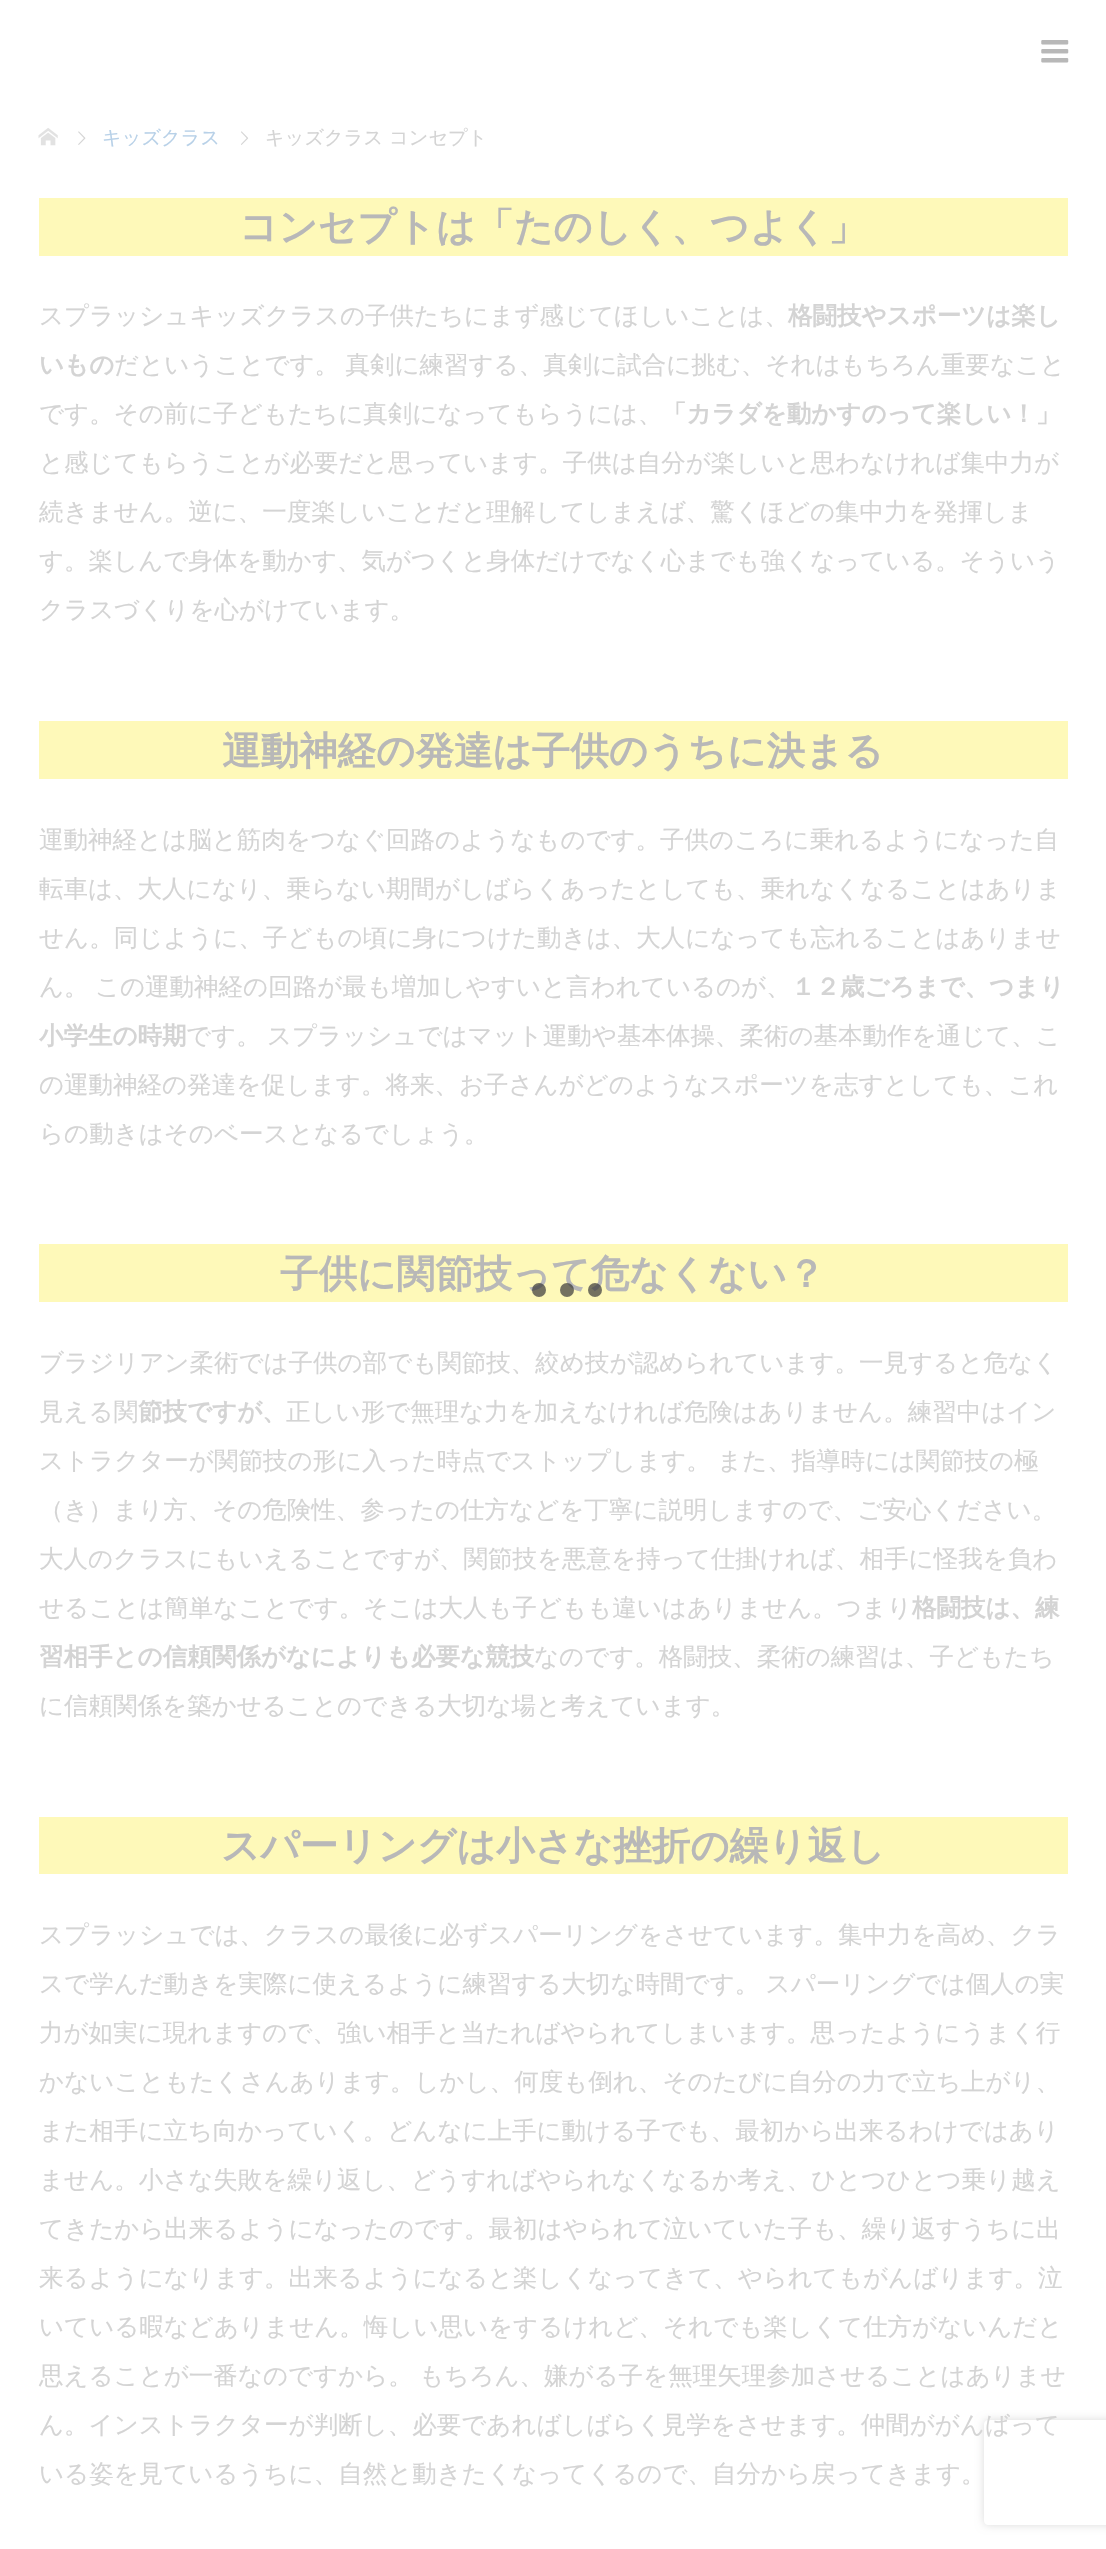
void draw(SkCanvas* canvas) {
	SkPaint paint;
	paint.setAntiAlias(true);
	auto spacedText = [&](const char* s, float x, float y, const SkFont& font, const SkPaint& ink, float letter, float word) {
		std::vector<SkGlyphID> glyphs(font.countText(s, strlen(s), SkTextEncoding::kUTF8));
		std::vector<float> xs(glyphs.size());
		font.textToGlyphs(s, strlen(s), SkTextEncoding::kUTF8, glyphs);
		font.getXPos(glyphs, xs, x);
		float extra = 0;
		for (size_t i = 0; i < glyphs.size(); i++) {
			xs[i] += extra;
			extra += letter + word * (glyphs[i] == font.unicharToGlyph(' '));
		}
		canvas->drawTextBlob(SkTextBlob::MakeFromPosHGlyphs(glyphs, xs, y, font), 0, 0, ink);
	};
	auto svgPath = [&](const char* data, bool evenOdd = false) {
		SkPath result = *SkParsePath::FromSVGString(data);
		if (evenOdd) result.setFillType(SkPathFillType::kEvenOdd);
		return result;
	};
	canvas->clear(0xffffffff);
	canvas->drawImageRect(SkImages::DeferredFromEncodedData(SkData::MakeFromFileName("img1.png")), SkRect::MakeXYWH(1041, 40, 28, 23), SkSamplingOptions());
	canvas->drawImageRect(SkImages::DeferredFromEncodedData(SkData::MakeFromFileName("img2.png")), SkRect::MakeXYWH(38, 127, 20, 19), SkSamplingOptions());
	canvas->drawImageRect(SkImages::DeferredFromEncodedData(SkData::MakeFromFileName("img3.png")), SkRect::MakeXYWH(78, 131, 8, 14), SkSamplingOptions());
	SkFont f1(fontMgr->matchFamilyStyle("WenQuanYi Zen Hei", SkFontStyle(500, SkFontStyle::kNormal_Width, SkFontStyle::kUpright_Slant)), 19.25);
	f1.setSubpixel(true);
	paint.setColor(0xffb8d1e8);
	canvas->drawString("キッズクラス", 102, 144, f1, paint);
	canvas->drawImageRect(SkImages::DeferredFromEncodedData(SkData::MakeFromFileName("img4.png")), SkRect::MakeXYWH(241, 131, 8, 14), SkSamplingOptions());
	paint.setColor(0xffd4d4d4);
	canvas->drawString("キッズクラス コンセプト", 265, 144, f1, paint);
	paint.setColor(0xfffef9b9);
	canvas->drawRect(SkRect::MakeXYWH(39, 198, 1029, 58), paint);
	SkFont f2(fontMgr->matchFamilyStyle("WenQuanYi Zen Hei", SkFontStyle::Bold()), 38.5);
	f2.setSubpixel(true);
	paint.setColor(0xffb8b8b8);
	canvas->drawString("コンセプトは「たのしく、つよく」", 239, 240, f2, paint);
	SkFont f3(fontMgr->matchFamilyStyle("WenQuanYi Zen Hei", SkFontStyle(500, SkFontStyle::kNormal_Width, SkFontStyle::kUpright_Slant)), 24.5);
	f3.setSubpixel(true);
	paint.setColor(0xffd4d4d4);
	canvas->drawString("スプラッシュキッズクラスの子供たちにまず感じてほしいことは、", 39, 324, f3, paint);
	SkFont f4(fontMgr->matchFamilyStyle("WenQuanYi Zen Hei", SkFontStyle::Bold()), 24.5);
	f4.setSubpixel(true);
	canvas->drawString("格闘技やスポーツは楽し", 788, 324, f4, paint);
	canvas->drawString("いもの", 39, 373, f4, paint);
	spacedText("だということです。 真剣に練習する、真剣に試合に挑む、それはもちろん重要なこと", 114, 373, f3, paint, 0, -1);
	canvas->drawString("です。その前に子どもたちに真剣になってもらうには、", 39, 422, f3, paint);
	canvas->drawString("「カラダを動かすのって楽しい！」", 662, 422, f4, paint);
	canvas->drawString("と感じてもらうことが必要だと思っています。子供は自分が楽しいと思わなければ集中力が", 39, 471, f3, paint);
	canvas->drawString("続きません。逆に、一度楽しいことだと理解してしまえば、驚くほどの集中力を発揮しま", 39, 520, f3, paint);
	canvas->drawString("す。楽しんで身体を動かす、気がつくと身体だけでなく心までも強くなっている。そういう", 39, 569, f3, paint);
	canvas->drawString("クラスづくりを心がけています。", 39, 618, f3, paint);
	paint.setColor(0xfffef9b9);
	canvas->drawRect(SkRect::MakeXYWH(39, 721, 1029, 58), paint);
	paint.setColor(0xffb8b8b8);
	canvas->drawString("運動神経の発達は子供のうちに決まる", 222, 764, f2, paint);
	paint.setColor(0xffd4d4d4);
	canvas->drawString("運動神経とは脳と筋肉をつなぐ回路のようなものです。子供のころに乗れるようになった自", 39, 848, f3, paint);
	canvas->drawString("転車は、大人になり、乗らない期間がしばらくあったとしても、乗れなくなることはありま", 39, 897, f3, paint);
	canvas->drawString("せん。同じように、子どもの頃に身につけた動きは、大人になっても忘れることはありませ", 39, 946, f3, paint);
	spacedText("ん。 この運動神経の回路が最も増加しやすいと言われているのが、", 39, 995, f3, paint, 0, -1);
	canvas->drawString("１２歳ごろまで、つまり", 791, 995, f4, paint);
	canvas->drawString("小学生の時期", 39, 1044, f4, paint);
	spacedText("です。 スプラッシュではマット運動や基本体操、柔術の基本動作を通じて、こ", 186, 1044, f3, paint, 0, -1);
	canvas->drawString("の運動神経の発達を促します。将来、お子さんがどのようなスポーツを志すとしても、これ", 39, 1093, f3, paint);
	canvas->drawString("らの動きはそのベースとなるでしょう。", 39, 1142, f3, paint);
	paint.setColor(0xfffef9b9);
	canvas->drawRect(SkRect::MakeXYWH(39, 1244, 1029, 58), paint);
	paint.setColor(0xffb8b8b8);
	canvas->drawString("子供に関節技って危なくない？", 280, 1287, f2, paint);
	paint.setColor(0xffd4d4d4);
	canvas->drawString("ブラジリアン柔術では子供の部でも関節技、絞め技が認められています。一見すると危なく", 39, 1371, f3, paint);
	canvas->drawString("見える関", 39, 1420, f3, paint);
	canvas->drawString("節技ですが、", 138, 1420, f4, paint);
	canvas->drawString("正しい形で無理な力を加えなければ危険はありません。練習中はイン", 286, 1420, f3, paint);
	spacedText("ストラクターが関節技の形に入った時点でストップします。 また、指導時には関節技の極", 39, 1469, f3, paint, 0, -1);
	canvas->drawString("（き）まり方、その危険性、参ったの仕方などを丁寧に説明しますので、ご安心ください。", 39, 1518, f3, paint);
	canvas->drawString("大人のクラスにもいえることですが、関節技を悪意を持って仕掛ければ、相手に怪我を負わ", 39, 1567, f3, paint);
	canvas->drawString("せることは簡単なことです。そこは大人も子どもも違いはありません。つまり", 39, 1616, f3, paint);
	canvas->drawString("格闘技は、練", 912, 1616, f4, paint);
	canvas->drawString("習相手との信頼関係がなによりも必要な競技", 39, 1665, f4, paint);
	canvas->drawString("なのです。格闘技、柔術の練習は、子どもたち", 534, 1665, f3, paint);
	canvas->drawString("に信頼関係を築かせることのできる大切な場と考えています。", 39, 1714, f3, paint);
	paint.setColor(0xfffef9b9);
	canvas->drawRect(SkRect::MakeXYWH(39, 1817, 1029, 57), paint);
	paint.setColor(0xffb8b8b8);
	canvas->drawString("スパーリングは小さな挫折の繰り返し", 221, 1859, f2, paint);
	paint.setColor(0xffd4d4d4);
	canvas->drawString("スプラッシュでは、クラスの最後に必ずスパーリングをさせています。集中力を高め、クラ", 39, 1943, f3, paint);
	spacedText("スで学んだ動きを実際に使えるように練習する大切な時間です。 スパーリングでは個人の実", 39, 1992, f3, paint, 0, -1);
	canvas->drawString("力が如実に現れますので、強い相手と当たればやられてしまいます。思ったようにうまく行", 39, 2041, f3, paint);
	canvas->drawString("かないこともたくさんあります。しかし、何度も倒れ、そのたびに自分の力で立ち上がり、", 39, 2090, f3, paint);
	canvas->drawString("また相手に立ち向かっていく。どんなに上手に動ける子でも、最初から出来るわけではあり", 39, 2139, f3, paint);
	canvas->drawString("ません。小さな失敗を繰り返し、どうすればやられなくなるか考え、ひとつひとつ乗り越え", 39, 2188, f3, paint);
	canvas->drawString("てきたから出来るようになったのです。最初はやられて泣いていた子も、繰り返すうちに出", 39, 2237, f3, paint);
	canvas->drawString("来るようになります。出来るようになると楽しくなってきて、やられてもがんばります。泣", 39, 2286, f3, paint);
	canvas->drawString("いている暇などありません。悔しい思いをするけれど、それでも楽しくて仕方がないんだと", 39, 2335, f3, paint);
	spacedText("思えることが一番なのですから。 もちろん、嫌がる子を無理矢理参加させることはありませ", 39, 2384, f3, paint, 0, -1);
	canvas->drawString("ん。インストラクターが判断し、必要であればしばらく見学をさせます。仲間ががんばって", 39, 2433, f3, paint);
	canvas->drawString("いる姿を見ているうちに、自然と動きたくなってくるので、自分から戻ってきます。", 39, 2482, f3, paint);
	paint.setColor(0xb83d3d3d);
	canvas->drawCircle(539, 1290, 7, paint);
	canvas->drawCircle(567, 1290, 7, paint);
	canvas->drawCircle(595, 1290, 7, paint);
	canvas->save();
	canvas->clipPath(svgPath("M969 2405H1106V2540H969ZM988 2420H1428C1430 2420 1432 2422 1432 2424V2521C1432 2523 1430 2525 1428 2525H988C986 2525 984 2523 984 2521V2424C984 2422 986 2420 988 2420Z", true), true);
	paint.setColor(0xffdbdbdb);
	paint.setMaskFilter(SkMaskFilter::MakeBlur(kNormal_SkBlurStyle, 4.5));
	canvas->drawRoundRect(SkRect::MakeXYWH(984, 2420, 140, 105), 4, 4, paint);
	paint.setMaskFilter(nullptr);
	canvas->restore();
}
